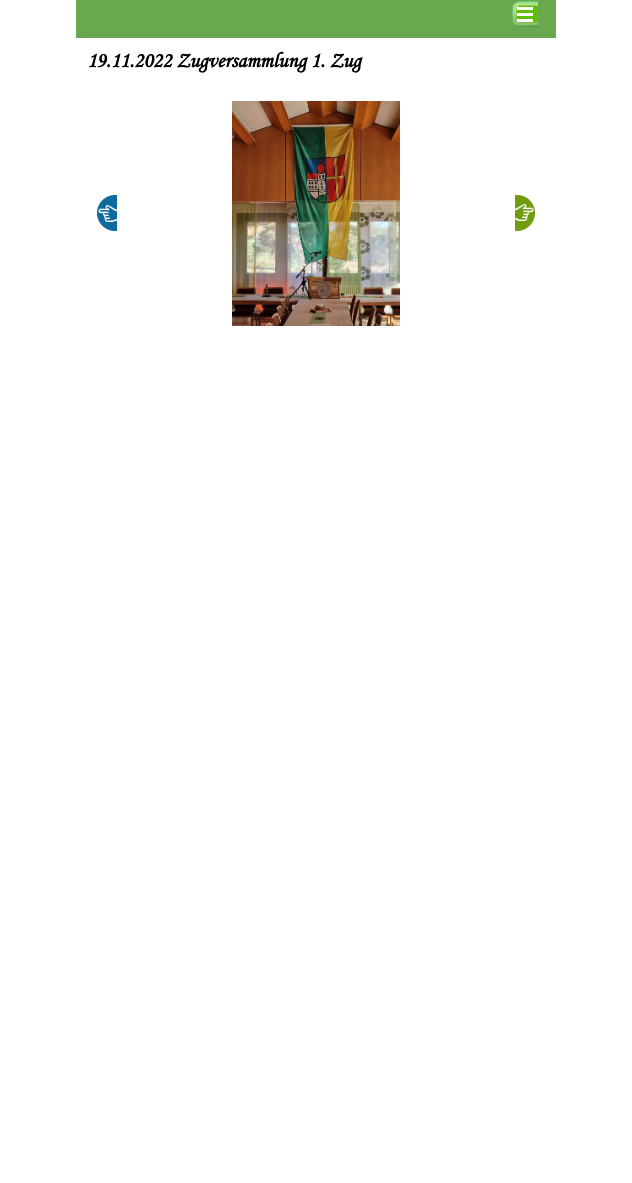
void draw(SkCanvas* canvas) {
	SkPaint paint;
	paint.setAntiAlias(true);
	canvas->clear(0xffffffff);
	paint.setColor(0xff6aa84f);
	canvas->drawRect(SkRect::MakeXYWH(76, 0, 480, 38), paint);
	canvas->drawImageRect(SkImages::DeferredFromEncodedData(SkData::MakeFromFileName("img1.png")), SkRect::MakeXYWH(512, 1, 26, 26), SkSamplingOptions());
	paint.setColor(0xffffffff);
	canvas->drawRect(SkRect::MakeXYWH(517, 7, 16, 3), paint);
	canvas->drawRect(SkRect::MakeXYWH(517, 13, 16, 3), paint);
	canvas->drawRect(SkRect::MakeXYWH(517, 19, 16, 3), paint);
	SkFont f1(fontMgr->matchFamilyStyle("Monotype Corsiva", SkFontStyle::BoldItalic()), 21.3);
	f1.setSubpixel(true);
	paint.setColor(0xff000000);
	canvas->drawString("19.11.2022 Zugversammlung 1. Zug", 87, 67, f1, paint);
	canvas->drawImageRect(SkImages::DeferredFromEncodedData(SkData::MakeFromFileName("img2.png")), SkRect::MakeXYWH(97, 195, 20, 36), SkSamplingOptions());
	canvas->drawImageRect(SkImages::DeferredFromEncodedData(SkData::MakeFromFileName("img3.png")), SkRect::MakeXYWH(232, 101, 168, 225), SkSamplingOptions());
	canvas->drawImageRect(SkImages::DeferredFromEncodedData(SkData::MakeFromFileName("img4.png")), SkRect::MakeXYWH(515, 195, 20, 36), SkSamplingOptions());
}
